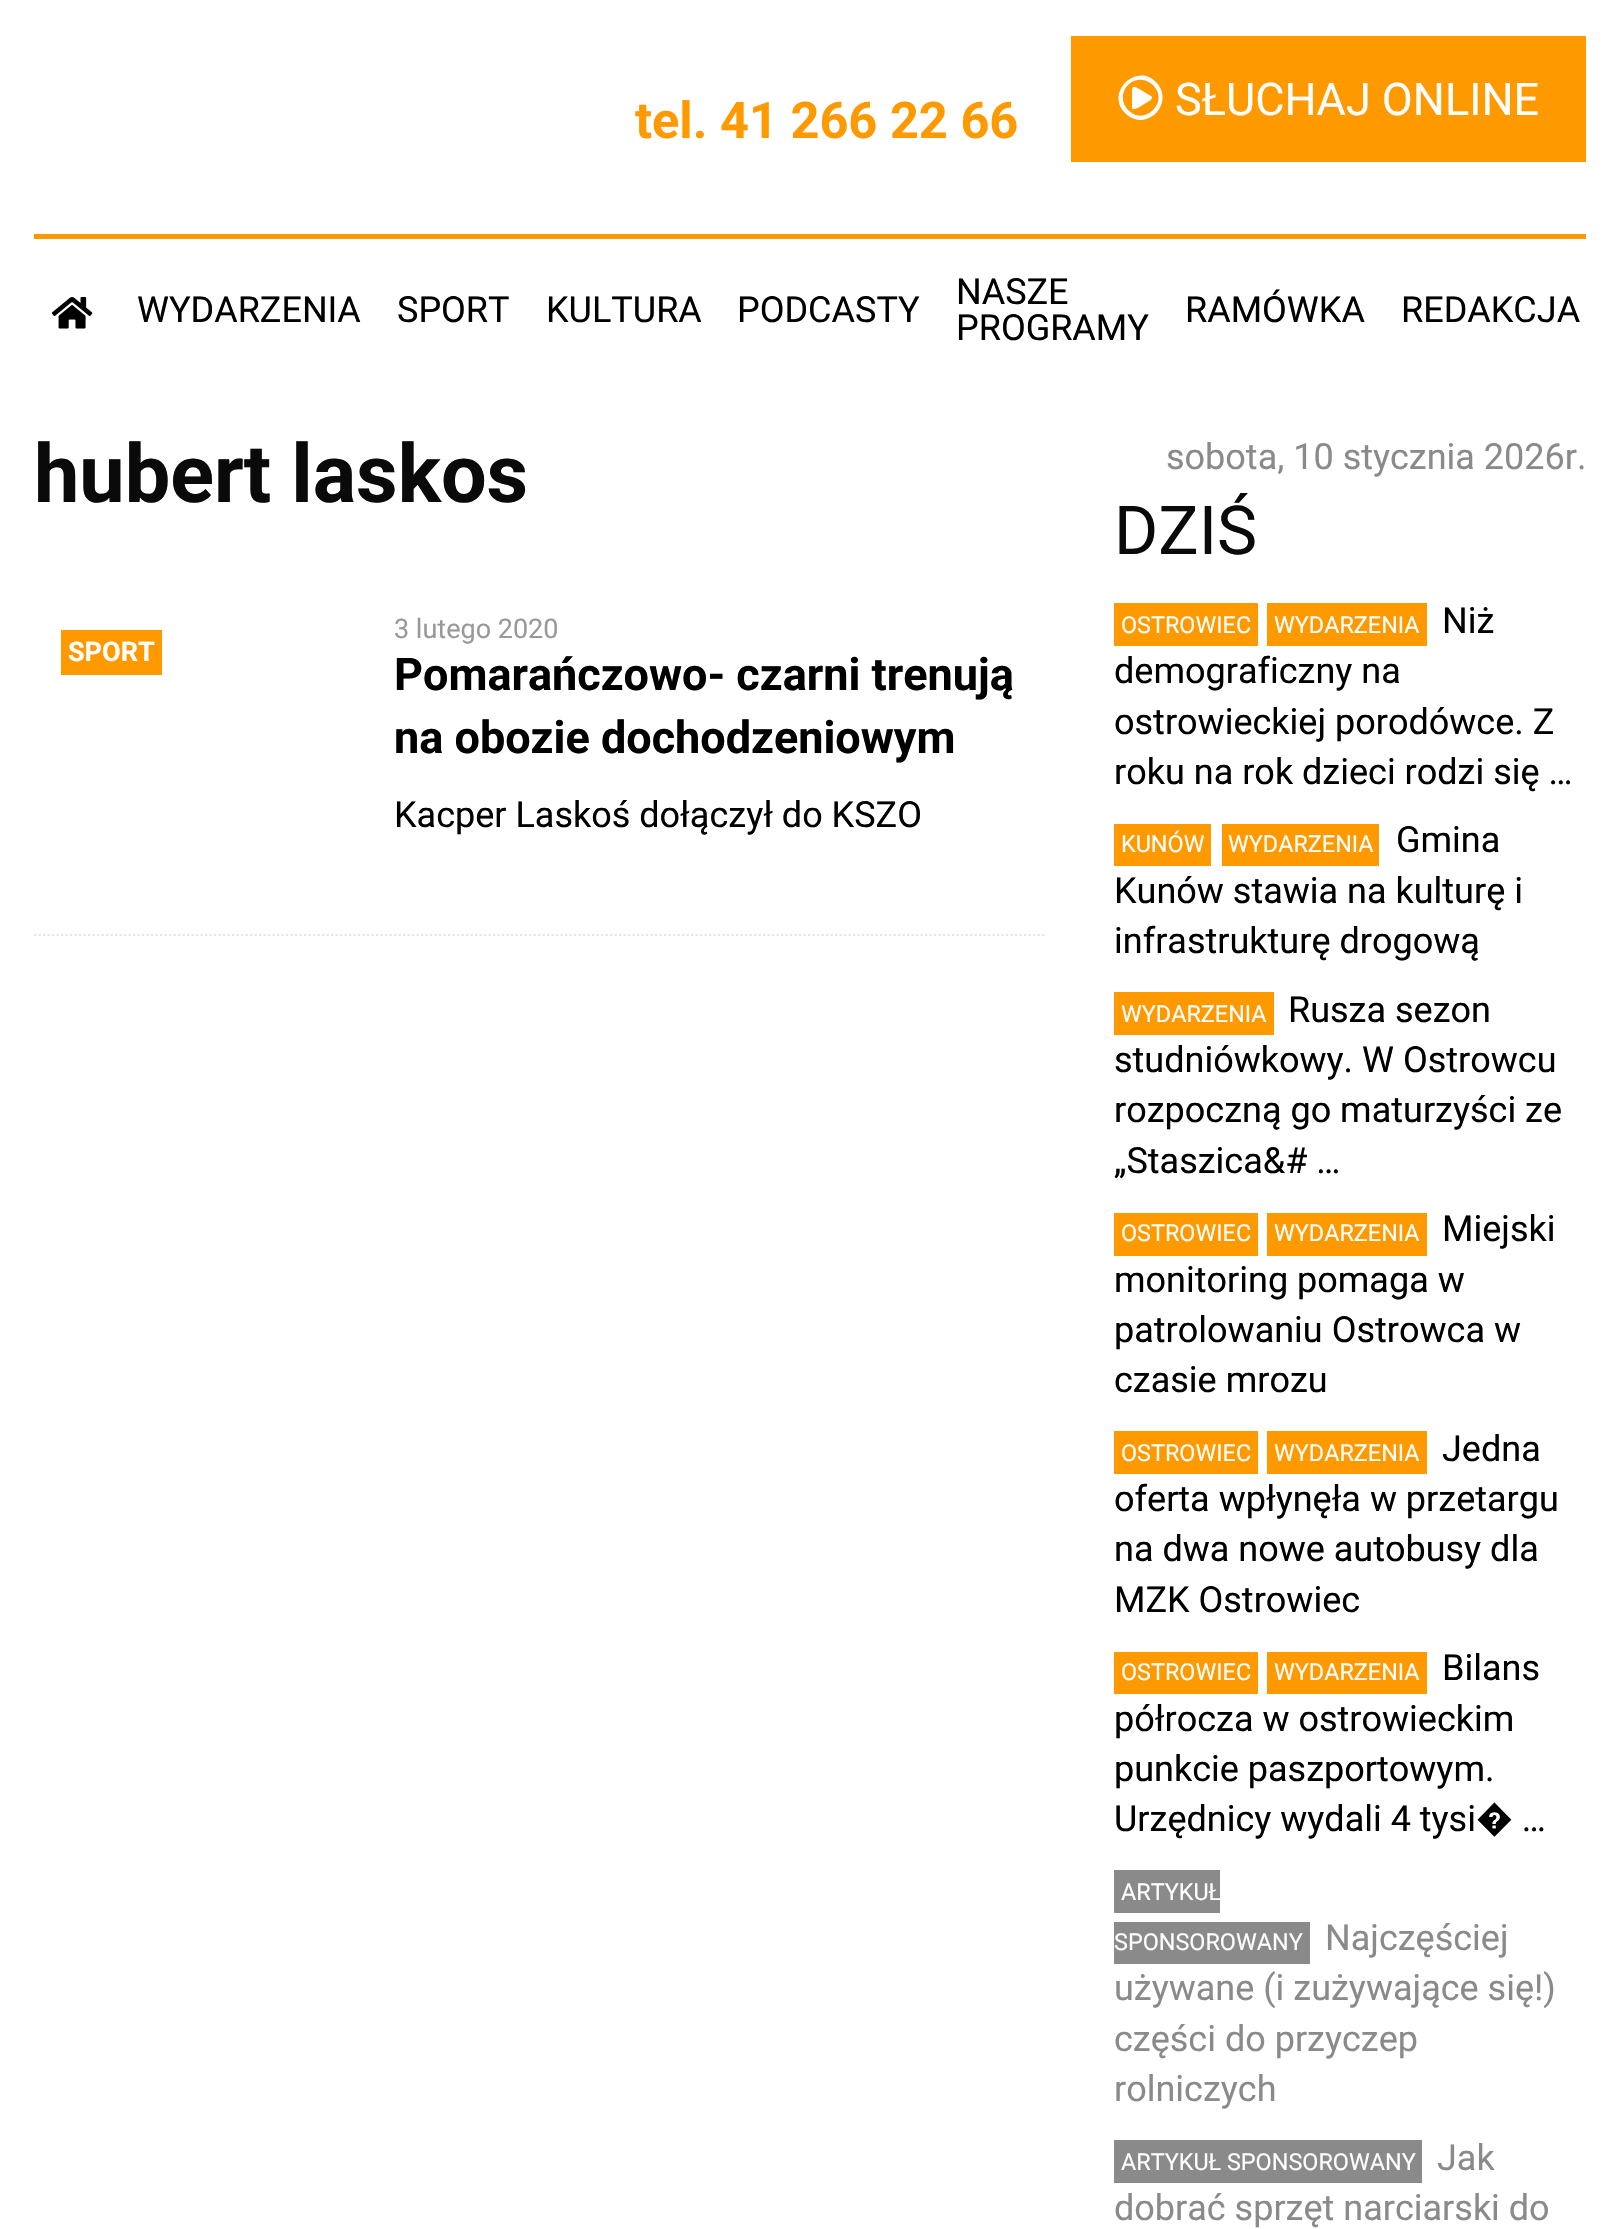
void draw(SkCanvas* canvas) {
	SkPaint paint;
	paint.setAntiAlias(true);
	auto svgPath = [&](const char* data, bool evenOdd = false) {
		SkPath result = *SkParsePath::FromSVGString(data);
		if (evenOdd) result.setFillType(SkPathFillType::kEvenOdd);
		return result;
	};
	canvas->clear(0xffffffff);
	paint.setColor(0xffff9900);
	canvas->drawRect(SkRect::MakeXYWH(34, 234, 1552, 5), paint);
	SkFont f1(fontMgr->matchFamilyStyle("Roboto", SkFontStyle::Bold()), 50.5);
	f1.setSubpixel(true);
	canvas->drawString("tel. 41 266 22 66", 635, 138, f1, paint);
	canvas->drawRect(SkRect::MakeXYWH(1071, 36, 515, 126), paint);
	paint.setColor(0xfffefefe);
	canvas->drawPath(svgPath("M1151 96C1155 99 1146 103 1146 103C1144 104 1136 110 1133 109L1132 108V92C1132 84 1135 87 1141 90ZM1156 82C1176 103 1146 134 1125 113C1105 93 1136 62 1156 82ZM1128 85C1112 102 1137 127 1153 110C1170 94 1145 69 1128 85Z"), paint);
	SkFont f2(fontMgr->matchFamilyStyle("Roboto", SkFontStyle::Normal()), 45);
	f2.setSubpixel(true);
	canvas->drawString("SŁUCHAJ ONLINE", 1175, 115, f2, paint);
	canvas->drawImageRect(SkImages::DeferredFromEncodedData(SkData::MakeFromFileName("img1.png")), SkRect::MakeXYWH(51, 297, 42, 32), SkSamplingOptions());
	SkFont f3(fontMgr->matchFamilyStyle("Roboto", SkFontStyle::Normal()), 36);
	f3.setSubpixel(true);
	paint.setColor(0xff000000);
	canvas->drawString("WYDARZENIA", 137, 322, f3, paint);
	canvas->drawString("SPORT", 397, 322, f3, paint);
	canvas->drawString("KULTURA", 546, 322, f3, paint);
	canvas->drawString("PODCASTY", 737, 322, f3, paint);
	canvas->drawString("NASZE", 956, 304, f3, paint);
	canvas->drawString("PROGRAMY", 956, 340, f3, paint);
	canvas->drawString("RAMÓWKA", 1185, 322, f3, paint);
	canvas->drawString("REDAKCJA", 1401, 322, f3, paint);
	SkFont f4(fontMgr->matchFamilyStyle("Roboto", SkFontStyle::Bold()), 81);
	f4.setSubpixel(true);
	paint.setColor(0xff0a0a0a);
	canvas->drawString("hubert laskos", 34, 502, f4, paint);
	paint.setStroke(true);
	paint.setStrokeWidth(2.2);
	paint.setColor(0xffe6e6e6);
	paint.setPathEffect(SkDashPathEffect::Make({{2.25f, 2.25f}}, 0));
	canvas->drawPath(svgPath("M34 935H1046"), paint);
	paint.setPathEffect(nullptr);
	paint.setStroke(false);
	paint.setColor(0xffff9900);
	canvas->drawRect(SkRect::MakeXYWH(61, 630, 101, 45), paint);
	SkFont f5(fontMgr->matchFamilyStyle("Roboto", SkFontStyle::Bold()), 27);
	f5.setSubpixel(true);
	paint.setColor(0xfffefefe);
	canvas->drawString("SPORT", 68, 661, f5, paint);
	SkFont f6(fontMgr->matchFamilyStyle("Roboto", SkFontStyle::Normal()), 27);
	f6.setSubpixel(true);
	paint.setColor(0xff999999);
	canvas->drawString("3 lutego 2020", 394, 638, f6, paint);
	SkFont f7(fontMgr->matchFamilyStyle("Roboto", SkFontStyle::Bold()), 45);
	f7.setSubpixel(true);
	paint.setColor(0xff000000);
	canvas->drawString("Pomarańczowo- czarni trenują", 394, 690, f7, paint);
	canvas->drawString("na obozie dochodzeniowym", 394, 753, f7, paint);
	canvas->drawString("Kacper Laskoś dołączył do KSZO", 394, 827, f3, paint);
	paint.setColor(0xff8a8a8a);
	canvas->drawString("sobota, 10 stycznia 2026r.", 1166, 469, f3, paint);
	SkFont f8(fontMgr->matchFamilyStyle("Roboto", SkFontStyle::Normal()), 67.5);
	f8.setSubpixel(true);
	paint.setColor(0xff0a0a0a);
	canvas->drawString("DZIŚ", 1114, 554, f8, paint);
	paint.setColor(0xffff9900);
	canvas->drawRect(SkRect::MakeXYWH(1114, 603, 144, 43), paint);
	SkFont f9(fontMgr->matchFamilyStyle("Roboto", SkFontStyle::Normal()), 23.4);
	f9.setSubpixel(true);
	paint.setColor(0xfffefefe);
	canvas->drawString("OSTROWIEC", 1121, 633, f9, paint);
	paint.setColor(0xffff9900);
	canvas->drawRect(SkRect::MakeXYWH(1267, 603, 160, 43), paint);
	paint.setColor(0xfffefefe);
	canvas->drawString("WYDARZENIA", 1274, 633, f9, paint);
	paint.setColor(0xff000000);
	canvas->drawString("Niż", 1442, 633, f3, paint);
	canvas->drawString("demograficzny na", 1114, 683, f3, paint);
	canvas->drawString("ostrowieckiej porodówce. Z", 1114, 734, f3, paint);
	canvas->drawString("roku na rok dzieci rodzi się …", 1114, 784, f3, paint);
	paint.setColor(0xffff9900);
	canvas->drawRect(SkRect::MakeXYWH(1114, 824, 97, 42), paint);
	paint.setColor(0xfffefefe);
	canvas->drawString("KUNÓW", 1121, 852, f9, paint);
	paint.setColor(0xffff9900);
	canvas->drawRect(SkRect::MakeXYWH(1222, 824, 157, 42), paint);
	paint.setColor(0xfffefefe);
	canvas->drawString("WYDARZENIA", 1228, 852, f9, paint);
	paint.setColor(0xff000000);
	canvas->drawString("Gmina", 1396, 852, f3, paint);
	canvas->drawString("Kunów stawia na kulturę i", 1114, 903, f3, paint);
	canvas->drawString("infrastrukturę drogową", 1114, 953, f3, paint);
	paint.setColor(0xffff9900);
	canvas->drawRect(SkRect::MakeXYWH(1114, 992, 160, 43), paint);
	paint.setColor(0xfffefefe);
	canvas->drawString("WYDARZENIA", 1121, 1022, f9, paint);
	paint.setColor(0xff000000);
	canvas->drawString("Rusza sezon", 1288, 1022, f3, paint);
	canvas->drawString("studniówkowy. W Ostrowcu", 1114, 1072, f3, paint);
	canvas->drawString("rozpoczną go maturzyści ze", 1114, 1122, f3, paint);
	canvas->drawString("„Staszica&# …", 1114, 1173, f3, paint);
	paint.setColor(0xffff9900);
	canvas->drawRect(SkRect::MakeXYWH(1114, 1213, 144, 43), paint);
	paint.setColor(0xfffefefe);
	canvas->drawString("OSTROWIEC", 1121, 1241, f9, paint);
	paint.setColor(0xffff9900);
	canvas->drawRect(SkRect::MakeXYWH(1267, 1213, 160, 43), paint);
	paint.setColor(0xfffefefe);
	canvas->drawString("WYDARZENIA", 1274, 1241, f9, paint);
	paint.setColor(0xff000000);
	canvas->drawString("Miejski", 1442, 1241, f3, paint);
	canvas->drawString("monitoring pomaga w", 1114, 1292, f3, paint);
	canvas->drawString("patrolowaniu Ostrowca w", 1114, 1342, f3, paint);
	canvas->drawString("czasie mrozu", 1114, 1392, f3, paint);
	paint.setColor(0xffff9900);
	canvas->drawRect(SkRect::MakeXYWH(1114, 1431, 144, 43), paint);
	paint.setColor(0xfffefefe);
	canvas->drawString("OSTROWIEC", 1121, 1461, f9, paint);
	paint.setColor(0xffff9900);
	canvas->drawRect(SkRect::MakeXYWH(1267, 1431, 160, 43), paint);
	paint.setColor(0xfffefefe);
	canvas->drawString("WYDARZENIA", 1274, 1461, f9, paint);
	paint.setColor(0xff000000);
	canvas->drawString("Jedna", 1442, 1461, f3, paint);
	canvas->drawString("oferta wpłynęła w przetargu", 1114, 1511, f3, paint);
	canvas->drawString("na dwa nowe autobusy dla", 1114, 1561, f3, paint);
	canvas->drawString("MZK Ostrowiec", 1114, 1612, f3, paint);
	paint.setColor(0xffff9900);
	canvas->drawRect(SkRect::MakeXYWH(1114, 1652, 144, 42), paint);
	paint.setColor(0xfffefefe);
	canvas->drawString("OSTROWIEC", 1121, 1680, f9, paint);
	paint.setColor(0xffff9900);
	canvas->drawRect(SkRect::MakeXYWH(1267, 1652, 160, 42), paint);
	paint.setColor(0xfffefefe);
	canvas->drawString("WYDARZENIA", 1274, 1680, f9, paint);
	paint.setColor(0xff000000);
	canvas->drawString("Bilans", 1442, 1680, f3, paint);
	canvas->drawString("półrocza w ostrowieckim", 1114, 1731, f3, paint);
	canvas->drawString("punkcie paszportowym.", 1114, 1781, f3, paint);
	canvas->drawString("Urzędnicy wydali 4 tysi� …", 1114, 1831, f3, paint);
	paint.setColor(0xff8a8a8a);
	canvas->drawRect(SkRect::MakeXYWH(1114, 1870, 106, 43), paint);
	paint.setColor(0xfffefefe);
	canvas->drawString("ARTYKUŁ", 1121, 1900, f9, paint);
	paint.setColor(0xff8a8a8a);
	canvas->drawRect(SkRect::MakeXYWH(1114, 1922, 196, 42), paint);
	paint.setColor(0xfffefefe);
	canvas->drawString("SPONSOROWANY", 1114, 1950, f9, paint);
	paint.setColor(0xff8a8a8a);
	canvas->drawString("Najczęściej", 1325, 1950, f3, paint);
	canvas->drawString("używane (i zużywające się!)", 1114, 2000, f3, paint);
	canvas->drawString("części do przyczep", 1114, 2051, f3, paint);
	canvas->drawString("rolniczych", 1114, 2101, f3, paint);
	canvas->drawRect(SkRect::MakeXYWH(1114, 2140, 308, 43), paint);
	paint.setColor(0xfffefefe);
	canvas->drawString("ARTYKUŁ SPONSOROWANY", 1121, 2170, f9, paint);
	paint.setColor(0xff8a8a8a);
	canvas->drawString("Jak", 1437, 2170, f3, paint);
	canvas->drawString("dobrać sprzęt narciarski do", 1114, 2220, f3, paint);
}
